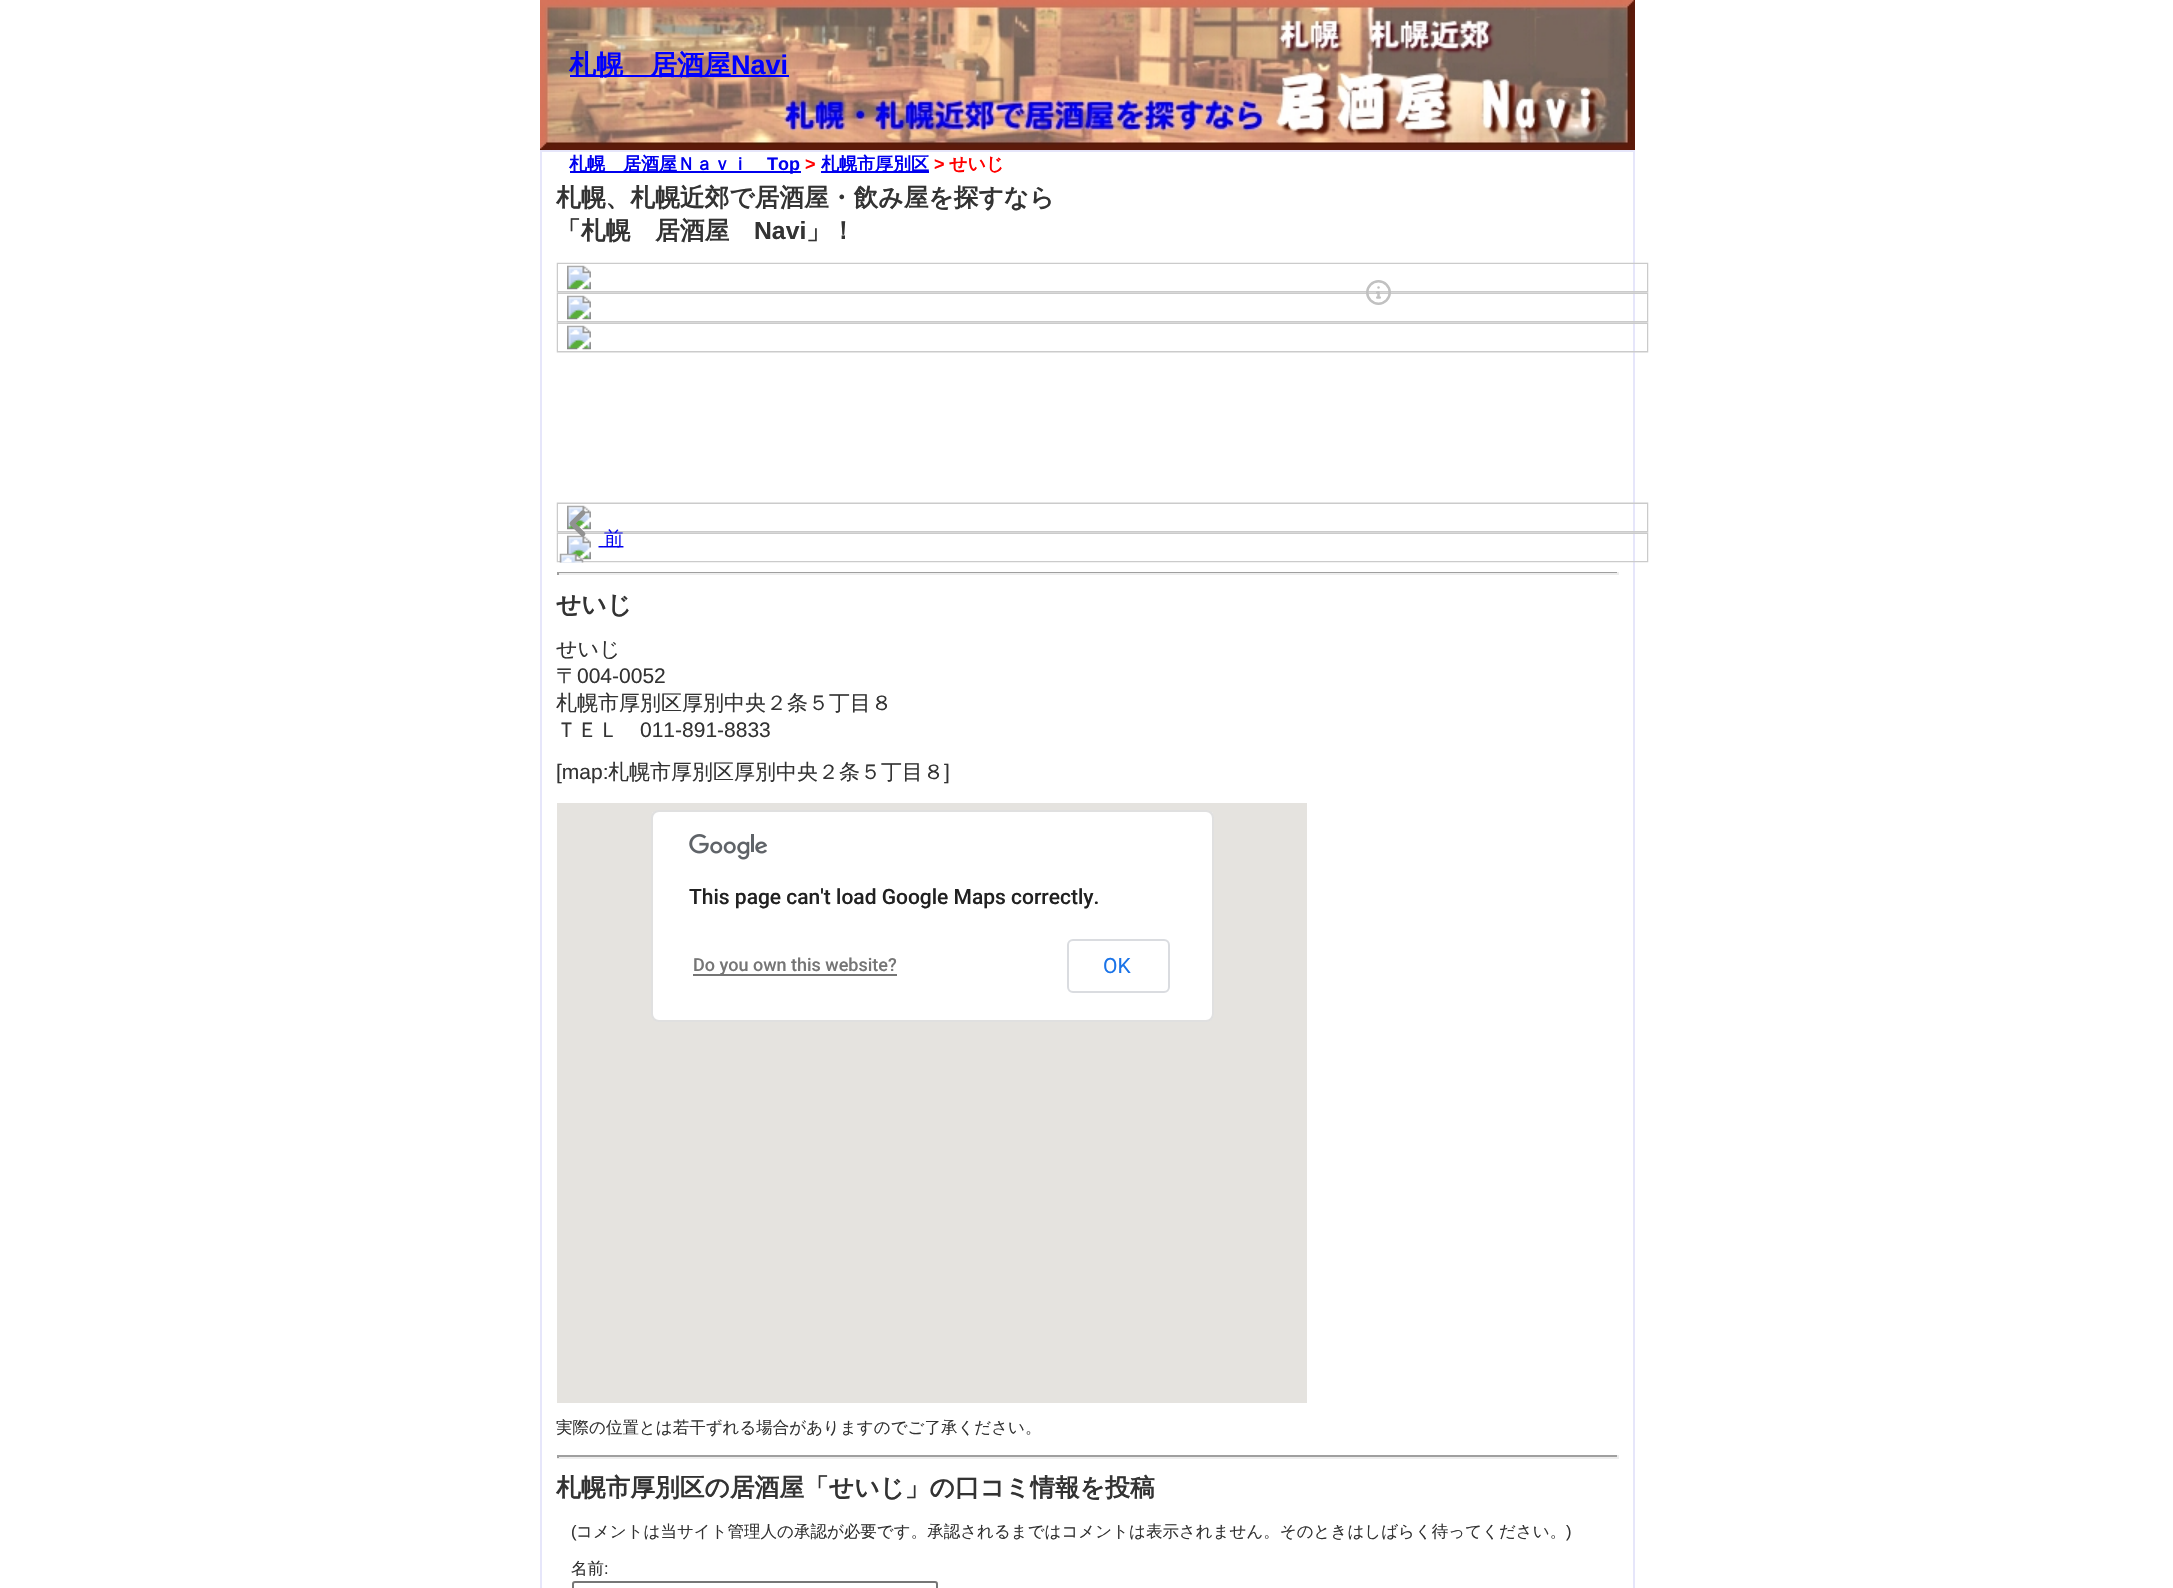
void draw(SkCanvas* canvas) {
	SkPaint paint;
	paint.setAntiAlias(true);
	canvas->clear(0xffffffff);
	canvas->drawImageRect(SkImages::DeferredFromEncodedData(SkData::MakeFromFileName("img1.png")), SkRect::MakeXYWH(540, 0, 1095, 150), SkSamplingOptions());
	paint.setColor(0xff0000ff);
	canvas->drawRect(SkRect::MakeXYWH(570, 75, 219, 2), paint);
	SkFont f1(fontMgr->matchFamilyStyle("WenQuanYi Zen Hei", SkFontStyle::Bold()), 27);
	f1.setSubpixel(true);
	canvas->drawString("札幌　居酒屋", 569, 74, f1, paint);
	SkFont f2(fontMgr->matchFamilyStyle("Liberation Sans", SkFontStyle::Bold()), 27);
	f2.setSubpixel(true);
	canvas->drawString("Navi", 731, 74, f2, paint);
	paint.setStroke(true);
	paint.setStrokeWidth(2);
	paint.setColor(0xffe6e6fa);
	canvas->drawRect(SkRect::MakeXYWH(541, 151, 1093, 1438), paint);
	paint.setStroke(false);
	paint.setColor(0xff0000ee);
	canvas->drawRect(SkRect::MakeXYWH(570, 171, 231, 2), paint);
	SkFont f3(fontMgr->matchFamilyStyle("WenQuanYi Zen Hei", SkFontStyle::Bold()), 18);
	f3.setSubpixel(true);
	canvas->drawString("札幌　居酒屋Ｎａｖｉ", 569, 170, f3, paint);
	SkFont f4(fontMgr->matchFamilyStyle("Liberation Sans", SkFontStyle::Bold()), 18);
	f4.setSubpixel(true);
	canvas->drawString("Top", 767, 170, f4, paint);
	paint.setColor(0xffff0000);
	canvas->drawString(">", 805, 170, f4, paint);
	paint.setColor(0xff0000ee);
	canvas->drawRect(SkRect::MakeXYWH(821, 171, 108, 2), paint);
	canvas->drawString("札幌市厚別区", 821, 170, f3, paint);
	paint.setColor(0xffff0000);
	canvas->drawString(">", 934, 170, f4, paint);
	canvas->drawString("せいじ", 949, 170, f3, paint);
	SkFont f5(fontMgr->matchFamilyStyle("WenQuanYi Zen Hei", SkFontStyle::Bold()), 24.75);
	f5.setSubpixel(true);
	paint.setColor(0xff333333);
	canvas->drawString("札幌、札幌近郊で居酒屋・飲み屋を探すなら", 556, 206, f5, paint);
	canvas->drawString("「札幌　居酒屋", 556, 239, f5, paint);
	SkFont f6(fontMgr->matchFamilyStyle("Liberation Sans", SkFontStyle::Bold()), 24.75);
	f6.setSubpixel(true);
	canvas->drawString("Navi", 754, 239, f6, paint);
	canvas->drawString("」！", 806, 239, f5, paint);
	canvas->drawImageRect(SkImages::DeferredFromEncodedData(SkData::MakeFromFileName("img2.png")), SkRect::MakeXYWH(556, 262, 1093, 301), SkSamplingOptions());
	paint.setColor(0xff9f9f9f);
	canvas->drawRect(SkRect::MakeXYWH(557, 572, 1062, 1), paint);
	paint.setColor(0xffeeeeee);
	canvas->drawRect(SkRect::MakeXYWH(1617, 572, 2, 3), paint);
	canvas->drawRect(SkRect::MakeXYWH(557, 573, 1062, 2), paint);
	paint.setColor(0xff9f9f9f);
	canvas->drawRect(SkRect::MakeXYWH(557, 572, 2, 3), paint);
	paint.setColor(0xff333333);
	canvas->drawString("せいじ", 556, 613, f5, paint);
	SkFont f7(fontMgr->matchFamilyStyle("WenQuanYi Zen Hei", SkFontStyle(500, SkFontStyle::kNormal_Width, SkFontStyle::kUpright_Slant)), 21);
	f7.setSubpixel(true);
	canvas->drawString("せいじ", 556, 656, f7, paint);
	canvas->drawString("〒", 556, 683, f7, paint);
	SkFont f8(fontMgr->matchFamilyStyle("Liberation Sans", SkFontStyle::Normal()), 21);
	f8.setSubpixel(true);
	canvas->drawString("004-0052", 577, 683, f8, paint);
	canvas->drawString("札幌市厚別区厚別中央２条５丁目８", 556, 710, f7, paint);
	canvas->drawString("ＴＥＬ", 556, 737, f7, paint);
	canvas->drawString("011-891-8833", 640, 737, f8, paint);
	canvas->drawString("[map:", 556, 779, f8, paint);
	canvas->drawString("札幌市厚別区厚別中央２条５丁目８", 608, 779, f7, paint);
	canvas->drawString("]", 944, 779, f8, paint);
	paint.setColor(0xffe5e3df);
	canvas->drawRect(SkRect::MakeXYWH(557, 803, 750, 600), paint);
	paint.setColor(0xffffffff);
	canvas->drawRoundRect(SkRect::MakeXYWH(651, 810, 563, 212), 8, 8, paint);
	paint.setStroke(true);
	paint.setColor(0x1f000000);
	canvas->drawRoundRect(SkRect::MakeXYWH(652, 811, 561, 210), 7, 7, paint);
	canvas->drawImageRect(SkImages::DeferredFromEncodedData(SkData::MakeFromFileName("img3.png")), SkRect::MakeXYWH(689, 834, 78, 26), SkSamplingOptions());
	SkFont f9(fontMgr->matchFamilyStyle("Roboto", SkFontStyle(500, SkFontStyle::kNormal_Width, SkFontStyle::kUpright_Slant)), 21);
	f9.setSubpixel(true);
	paint.setStroke(false);
	paint.setColor(0xff212121);
	canvas->drawString("This page can't load Google Maps correctly.", 689, 904, f9, paint);
	paint.setColor(0xff757575);
	canvas->drawRect(SkRect::MakeXYWH(693, 974, 204, 2), paint);
	SkFont f10(fontMgr->matchFamilyStyle("Roboto", SkFontStyle(500, SkFontStyle::kNormal_Width, SkFontStyle::kUpright_Slant)), 18);
	f10.setSubpixel(true);
	canvas->drawString("Do you own this website?", 693, 971, f10, paint);
	paint.setStroke(true);
	paint.setColor(0xffdadce0);
	canvas->drawRoundRect(SkRect::MakeXYWH(1068, 940, 101, 52), 5, 5, paint);
	SkFont f11(fontMgr->matchFamilyStyle("Roboto", SkFontStyle::Normal()), 21);
	f11.setSubpixel(true);
	paint.setStroke(false);
	paint.setColor(0xff1a73e8);
	canvas->drawString("OK", 1103, 973, f11, paint);
	SkFont f12(fontMgr->matchFamilyStyle("WenQuanYi Zen Hei", SkFontStyle(500, SkFontStyle::kNormal_Width, SkFontStyle::kUpright_Slant)), 16.5);
	f12.setSubpixel(true);
	paint.setColor(0xff333333);
	canvas->drawString("実際の位置とは若干ずれる場合がありますのでご了承ください。", 556, 1433, f12, paint);
	paint.setColor(0xff9f9f9f);
	canvas->drawRect(SkRect::MakeXYWH(557, 1455, 1062, 2), paint);
	paint.setColor(0xffeeeeee);
	canvas->drawRect(SkRect::MakeXYWH(1617, 1455, 2, 3), paint);
	canvas->drawRect(SkRect::MakeXYWH(557, 1457, 1062, 2), paint);
	paint.setColor(0xff9f9f9f);
	canvas->drawRect(SkRect::MakeXYWH(557, 1455, 2, 3), paint);
	paint.setColor(0xff333333);
	canvas->drawString("札幌市厚別区の居酒屋「せいじ」の口コミ情報を投稿", 556, 1496, f5, paint);
	SkFont f13(fontMgr->matchFamilyStyle("Liberation Sans", SkFontStyle::Normal()), 16.5);
	f13.setSubpixel(true);
	canvas->drawString("(", 571, 1537, f13, paint);
	canvas->drawString("コメントは当サイト管理人の承認が必要です。承認されるまではコメントは表示されません。そのときはしばらく待ってください。", 576, 1537, f12, paint);
	canvas->drawString(")", 1566, 1537, f13, paint);
	canvas->drawString("名前", 571, 1574, f12, paint);
	canvas->drawString(":", 604, 1574, f13, paint);
	paint.setStroke(true);
	paint.setColor(0xff767676);
	canvas->drawRoundRect(SkRect::MakeXYWH(573, 1582, 364, 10), 2, 2, paint);
}
